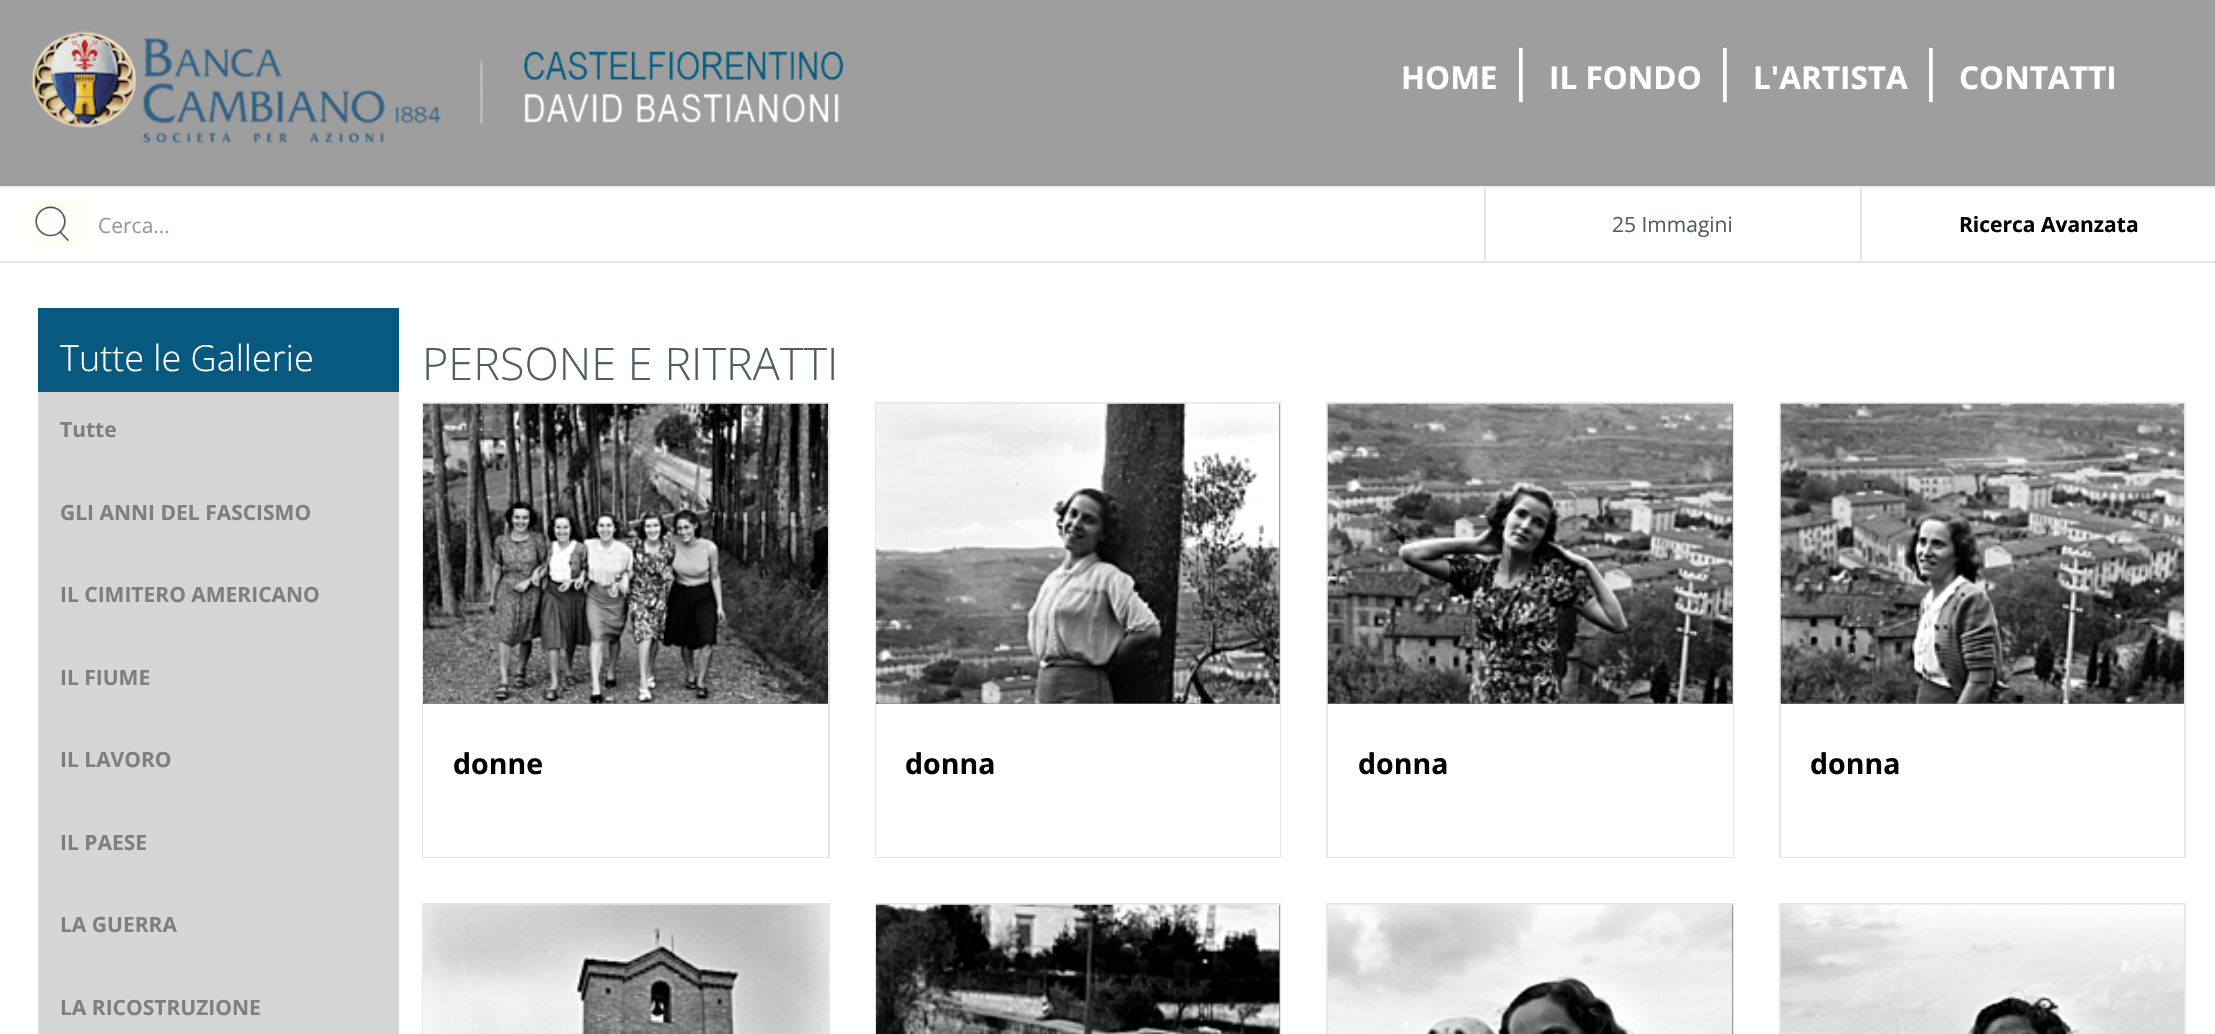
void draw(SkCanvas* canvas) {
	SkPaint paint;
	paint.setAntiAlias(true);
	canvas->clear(0xffffffff);
	paint.setColor(0xff9e9e9e);
	canvas->drawRect(SkRect::MakeXYWH(0, 0, 2215, 186), paint);
	paint.setColor(0xffeeeeee);
	canvas->drawRect(SkRect::MakeXYWH(0, 186, 2215, 2), paint);
	canvas->drawImageRect(SkImages::DeferredFromEncodedData(SkData::MakeFromFileName("img1.png")), SkRect::MakeXYWH(31, 31, 410, 112), SkSamplingOptions());
	canvas->drawImageRect(SkImages::DeferredFromEncodedData(SkData::MakeFromFileName("img2.png")), SkRect::MakeXYWH(480, 51, 364, 74), SkSamplingOptions());
	SkFont f1(fontMgr->matchFamilyStyle("Open Sans", SkFontStyle::Bold()), 31.5);
	f1.setSubpixel(true);
	paint.setColor(0xffffffff);
	canvas->drawString("HOME", 1401, 89, f1, paint);
	SkFont f2(fontMgr->matchFamilyStyle("Open Sans", SkFontStyle::Normal()), 54);
	f2.setSubpixel(true);
	canvas->drawString("|", 1506, 89, f2, paint);
	canvas->drawString("IL FONDO", 1549, 89, f1, paint);
	canvas->drawString("|", 1710, 89, f2, paint);
	canvas->drawString("L'ARTISTA", 1753, 89, f1, paint);
	canvas->drawString("|", 1916, 89, f2, paint);
	canvas->drawString("CONTATTI", 1959, 89, f1, paint);
	paint.setColor(0xffe7e7e7);
	canvas->drawRect(SkRect::MakeXYWH(0, 261, 2215, 2), paint);
	canvas->drawRect(SkRect::MakeXYWH(1484, 188, 2, 73), paint);
	canvas->drawImageRect(SkImages::DeferredFromEncodedData(SkData::MakeFromFileName("img3.png")), SkRect::MakeXYWH(30, 199, 53, 49), SkSamplingOptions());
	SkFont f3(fontMgr->matchFamilyStyle("Open Sans", SkFontStyle::Normal()), 21);
	f3.setSubpixel(true);
	paint.setColor(0xff999999);
	canvas->drawString("Cerca...", 98, 233, f3, paint);
	paint.setColor(0xffe7e7e7);
	canvas->drawRect(SkRect::MakeXYWH(1860, 188, 2, 73), paint);
	paint.setColor(0xff525e64);
	canvas->drawString("25 Immagini", 1612, 232, f3, paint);
	SkFont f4(fontMgr->matchFamilyStyle("Open Sans", SkFontStyle::Bold()), 21);
	f4.setSubpixel(true);
	paint.setColor(0xff000000);
	canvas->drawString("Ricerca Avanzata", 1959, 232, f4, paint);
	paint.setColor(0xff085980);
	canvas->drawRect(SkRect::MakeXYWH(38, 308, 361, 84), paint);
	SkFont f5(fontMgr->matchFamilyStyle("Open Sans", SkFontStyle(300, SkFontStyle::kNormal_Width, SkFontStyle::kUpright_Slant)), 36);
	f5.setSubpixel(true);
	paint.setColor(0xffffffff);
	canvas->drawString("Tutte le Gallerie", 60, 371, f5, paint);
	paint.setColor(0xffd6d6d6);
	canvas->drawRect(SkRect::MakeXYWH(38, 392, 361, 642), paint);
	paint.setColor(0xff7f7f7f);
	canvas->drawString("Tutte", 60, 437, f4, paint);
	canvas->drawString("GLI ANNI DEL FASCISMO", 60, 520, f4, paint);
	canvas->drawString("IL CIMITERO AMERICANO", 60, 602, f4, paint);
	canvas->drawString("IL FIUME", 60, 685, f4, paint);
	canvas->drawString("IL LAVORO", 60, 767, f4, paint);
	canvas->drawString("IL PAESE", 60, 850, f4, paint);
	canvas->drawString("LA GUERRA", 60, 932, f4, paint);
	canvas->drawString("LA RICOSTRUZIONE", 60, 1015, f4, paint);
	SkFont f6(fontMgr->matchFamilyStyle("Open Sans", SkFontStyle(300, SkFontStyle::kNormal_Width, SkFontStyle::kUpright_Slant)), 45);
	f6.setSubpixel(true);
	paint.setColor(0xff525e64);
	canvas->drawString("PERSONE E RITRATTI", 422, 380, f6, paint);
	paint.setStroke(true);
	paint.setStrokeWidth(2);
	paint.setColor(0xffe7e7e7);
	canvas->drawRect(SkRect::MakeXYWH(423, 403, 406, 454), paint);
	paint.setStroke(false);
	paint.setColor(0xff7e7e7e);
	canvas->drawRect(SkRect::MakeXYWH(423, 703, 405, 1), paint);
	canvas->drawImageRect(SkImages::DeferredFromEncodedData(SkData::MakeFromFileName("img4.png")), SkRect::MakeXYWH(423, 403, 405, 301), SkSamplingOptions());
	paint.setColor(0xffffffff);
	canvas->drawRect(SkRect::MakeXYWH(423, 704, 405, 153), paint);
	SkFont f7(fontMgr->matchFamilyStyle("Open Sans", SkFontStyle::Bold()), 28.5);
	f7.setSubpixel(true);
	paint.setColor(0xff000000);
	canvas->drawString("donne", 453, 774, f7, paint);
	paint.setStroke(true);
	paint.setColor(0xffe7e7e7);
	canvas->drawRect(SkRect::MakeXYWH(876, 403, 404, 454), paint);
	paint.setStroke(false);
	paint.setColor(0xff7e7e7e);
	canvas->drawRect(SkRect::MakeXYWH(876, 404, 404, 300), paint);
	canvas->drawImageRect(SkImages::DeferredFromEncodedData(SkData::MakeFromFileName("img5.png")), SkRect::MakeXYWH(876, 403, 404, 301), SkSamplingOptions());
	paint.setColor(0xffffffff);
	canvas->drawRect(SkRect::MakeXYWH(876, 704, 404, 153), paint);
	paint.setColor(0xff000000);
	canvas->drawString("donna", 905, 774, f7, paint);
	paint.setStroke(true);
	paint.setColor(0xffe7e7e7);
	canvas->drawRect(SkRect::MakeXYWH(1327, 403, 406, 454), paint);
	paint.setStroke(false);
	paint.setColor(0xff7e7e7e);
	canvas->drawRect(SkRect::MakeXYWH(1328, 404, 405, 300), paint);
	canvas->drawImageRect(SkImages::DeferredFromEncodedData(SkData::MakeFromFileName("img6.png")), SkRect::MakeXYWH(1327, 403, 406, 301), SkSamplingOptions());
	paint.setColor(0xffffffff);
	canvas->drawRect(SkRect::MakeXYWH(1328, 704, 405, 153), paint);
	paint.setColor(0xff000000);
	canvas->drawString("donna", 1358, 774, f7, paint);
	paint.setStroke(true);
	paint.setColor(0xffe7e7e7);
	canvas->drawRect(SkRect::MakeXYWH(1780, 403, 405, 454), paint);
	paint.setStroke(false);
	paint.setColor(0xff7e7e7e);
	canvas->drawRect(SkRect::MakeXYWH(1781, 703, 403, 1), paint);
	canvas->drawImageRect(SkImages::DeferredFromEncodedData(SkData::MakeFromFileName("img7.png")), SkRect::MakeXYWH(1780, 403, 404, 301), SkSamplingOptions());
	paint.setColor(0xffffffff);
	canvas->drawRect(SkRect::MakeXYWH(1781, 856, 403, 1), paint);
	paint.setColor(0xff000000);
	canvas->drawString("donna", 1810, 774, f7, paint);
	paint.setStroke(true);
	paint.setColor(0xffe7e7e7);
	canvas->drawRect(SkRect::MakeXYWH(423, 904, 406, 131), paint);
	canvas->drawImageRect(SkImages::DeferredFromEncodedData(SkData::MakeFromFileName("img8.png")), SkRect::MakeXYWH(423, 904, 405, 130), SkSamplingOptions());
	canvas->drawRect(SkRect::MakeXYWH(876, 904, 404, 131), paint);
	paint.setStroke(false);
	paint.setColor(0xff7e7e7e);
	canvas->drawRect(SkRect::MakeXYWH(1279, 905, 1, 129), paint);
	canvas->drawImageRect(SkImages::DeferredFromEncodedData(SkData::MakeFromFileName("img9.png")), SkRect::MakeXYWH(876, 904, 404, 130), SkSamplingOptions());
	paint.setStroke(true);
	paint.setColor(0xffe7e7e7);
	canvas->drawRect(SkRect::MakeXYWH(1327, 904, 406, 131), paint);
	paint.setStroke(false);
	paint.setColor(0xff7e7e7e);
	canvas->drawRect(SkRect::MakeXYWH(1732, 905, 1, 129), paint);
	canvas->drawImageRect(SkImages::DeferredFromEncodedData(SkData::MakeFromFileName("img10.png")), SkRect::MakeXYWH(1327, 904, 406, 130), SkSamplingOptions());
	paint.setStroke(true);
	paint.setColor(0xffe7e7e7);
	canvas->drawRect(SkRect::MakeXYWH(1780, 904, 405, 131), paint);
	canvas->drawImageRect(SkImages::DeferredFromEncodedData(SkData::MakeFromFileName("img11.png")), SkRect::MakeXYWH(1780, 904, 404, 130), SkSamplingOptions());
}
